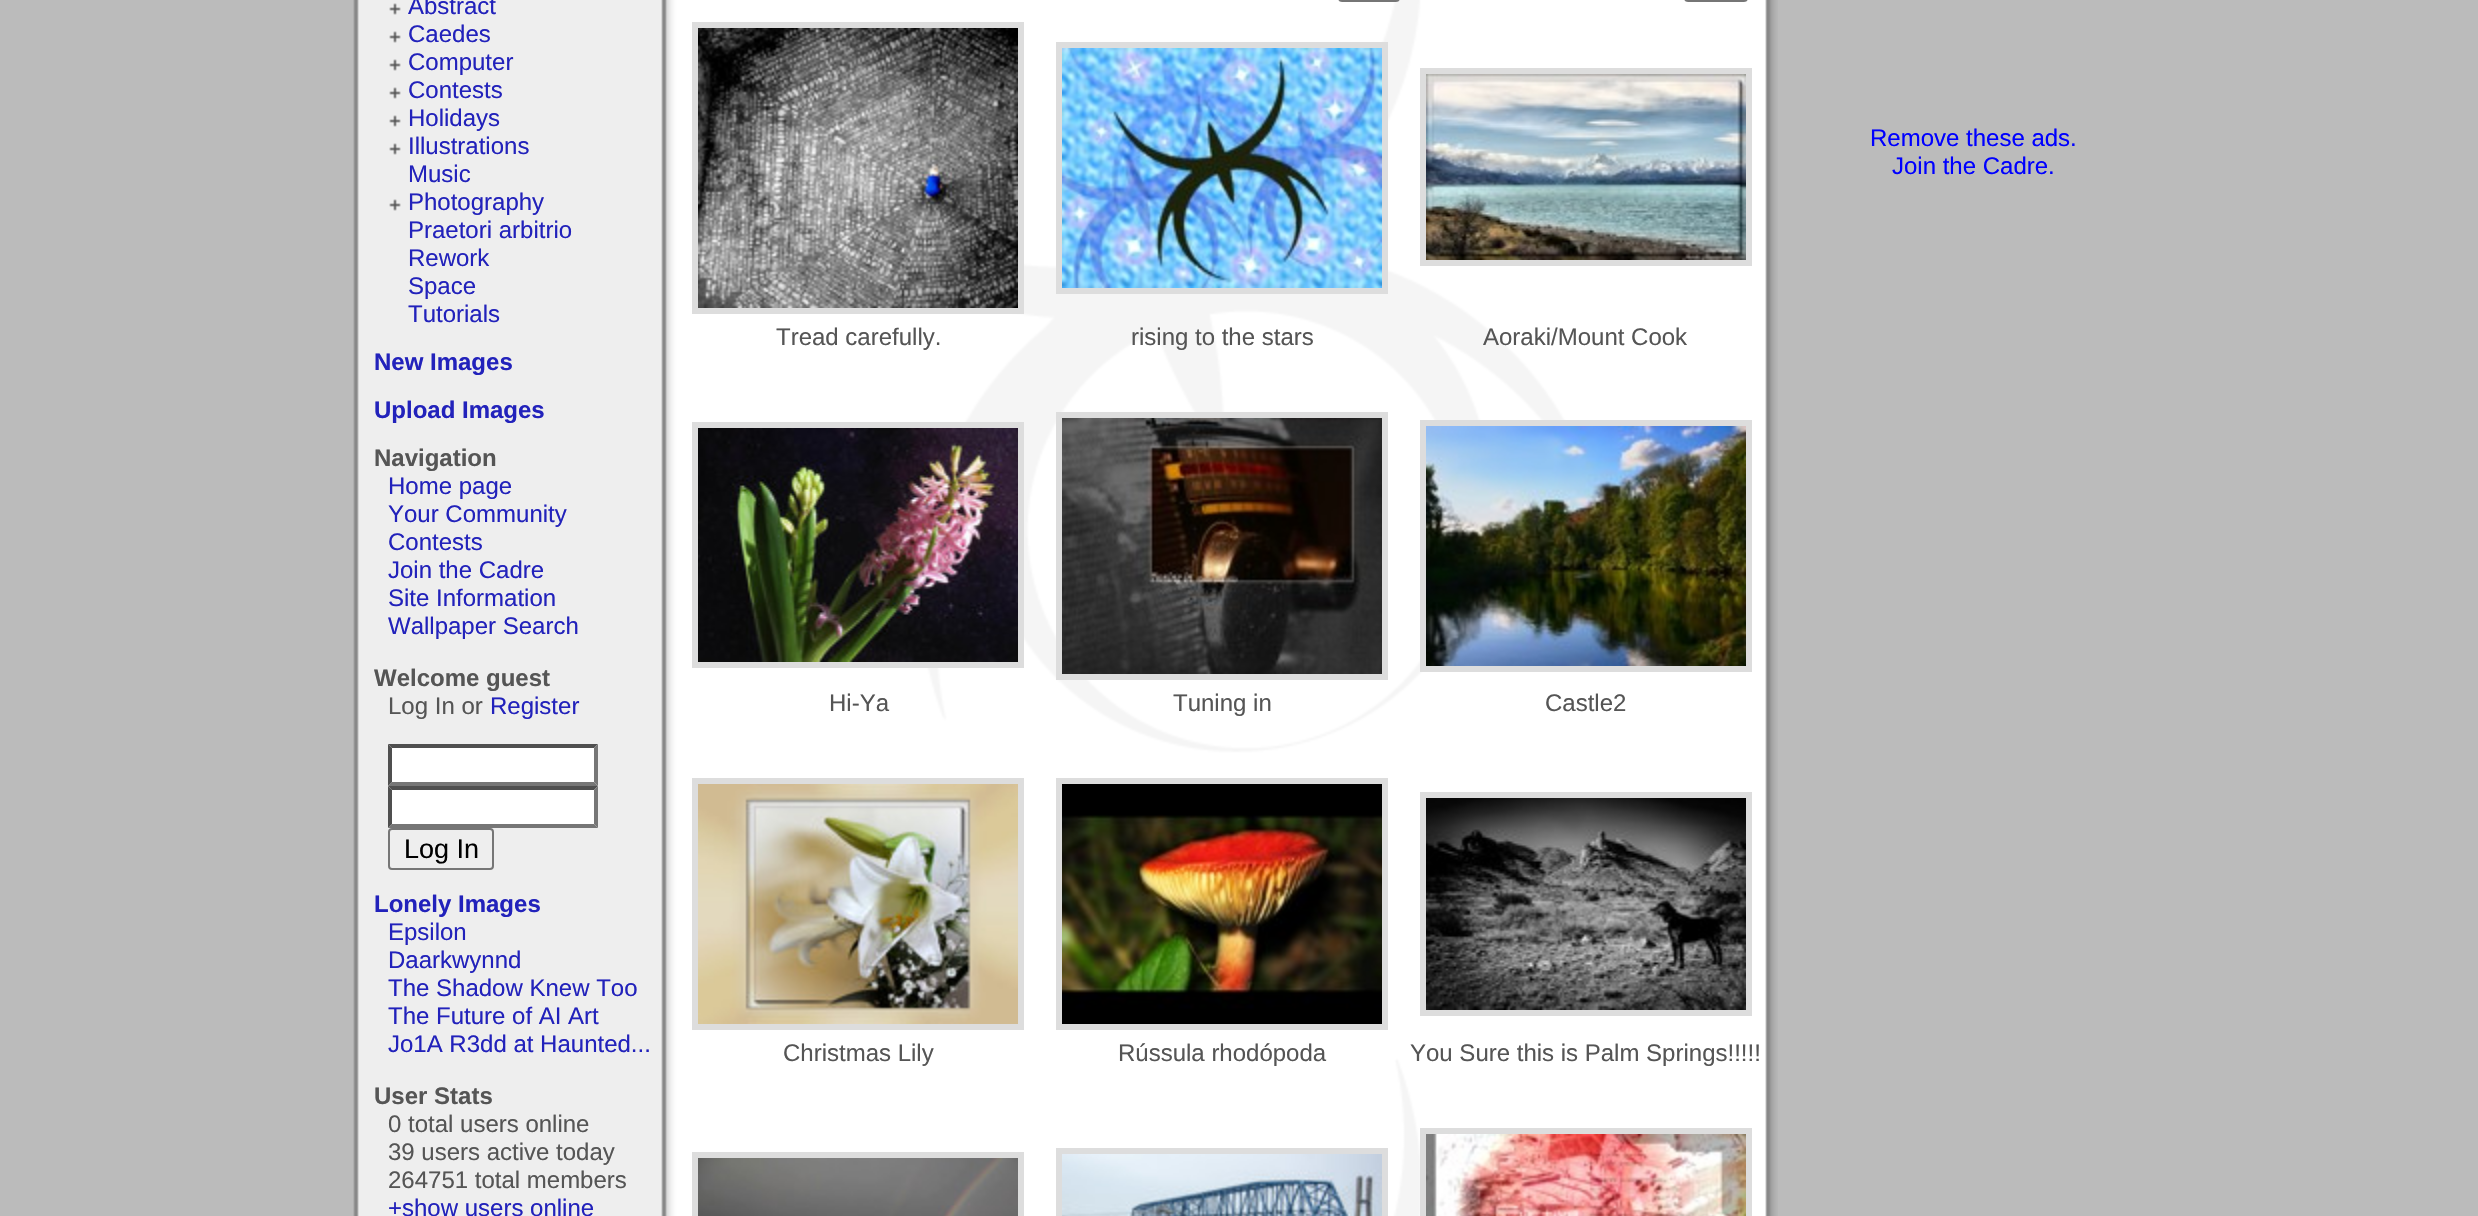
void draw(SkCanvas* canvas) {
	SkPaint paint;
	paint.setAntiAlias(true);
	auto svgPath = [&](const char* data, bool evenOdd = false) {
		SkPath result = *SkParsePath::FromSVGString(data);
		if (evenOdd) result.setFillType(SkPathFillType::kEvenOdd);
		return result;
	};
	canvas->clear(0xffbbbbbb);
	canvas->drawImageRect(SkImages::DeferredFromEncodedData(SkData::MakeFromFileName("img1.png")), SkRect::MakeXYWH(353, 0, 1425, 1216), SkSamplingOptions());
	canvas->drawImageRect(SkImages::DeferredFromEncodedData(SkData::MakeFromFileName("img2.png")), SkRect::MakeXYWH(389, 3, 12, 12), SkSamplingOptions());
	SkFont f1(fontMgr->matchFamilyStyle("Liberation Sans", SkFontStyle::Normal()), 24);
	f1.setSubpixel(true);
	paint.setColor(0xff2222bb);
	canvas->drawString("Abstract", 408, 14, f1, paint);
	canvas->drawImageRect(SkImages::DeferredFromEncodedData(SkData::MakeFromFileName("img2.png")), SkRect::MakeXYWH(389, 31, 12, 12), SkSamplingOptions());
	canvas->drawString("Caedes", 408, 42, f1, paint);
	canvas->drawImageRect(SkImages::DeferredFromEncodedData(SkData::MakeFromFileName("img2.png")), SkRect::MakeXYWH(389, 59, 12, 12), SkSamplingOptions());
	canvas->drawString("Computer", 408, 70, f1, paint);
	canvas->drawImageRect(SkImages::DeferredFromEncodedData(SkData::MakeFromFileName("img2.png")), SkRect::MakeXYWH(389, 87, 12, 12), SkSamplingOptions());
	canvas->drawString("Contests", 408, 98, f1, paint);
	canvas->drawImageRect(SkImages::DeferredFromEncodedData(SkData::MakeFromFileName("img2.png")), SkRect::MakeXYWH(389, 115, 12, 12), SkSamplingOptions());
	canvas->drawString("Holidays", 408, 126, f1, paint);
	canvas->drawImageRect(SkImages::DeferredFromEncodedData(SkData::MakeFromFileName("img2.png")), SkRect::MakeXYWH(389, 143, 12, 12), SkSamplingOptions());
	canvas->drawString("Illustrations", 408, 154, f1, paint);
	canvas->drawString("Music", 408, 182, f1, paint);
	canvas->drawImageRect(SkImages::DeferredFromEncodedData(SkData::MakeFromFileName("img2.png")), SkRect::MakeXYWH(389, 199, 12, 12), SkSamplingOptions());
	canvas->drawString("Photography", 408, 210, f1, paint);
	canvas->drawString("Praetori arbitrio", 408, 238, f1, paint);
	canvas->drawString("Rework", 408, 266, f1, paint);
	canvas->drawString("Space", 408, 294, f1, paint);
	canvas->drawString("Tutorials", 408, 322, f1, paint);
	SkFont f2(fontMgr->matchFamilyStyle("Liberation Sans", SkFontStyle::Bold()), 24);
	f2.setSubpixel(true);
	canvas->drawString("New Images", 374, 370, f2, paint);
	canvas->drawString("Upload Images", 374, 418, f2, paint);
	paint.setColor(0xff555555);
	canvas->drawString("Navigation", 374, 466, f2, paint);
	paint.setColor(0xff2222bb);
	canvas->drawString("Home page", 388, 494, f1, paint);
	canvas->drawString("Your Community", 388, 522, f1, paint);
	canvas->drawString("Contests", 388, 550, f1, paint);
	canvas->drawString("Join the Cadre", 388, 578, f1, paint);
	canvas->drawString("Site Information", 388, 606, f1, paint);
	canvas->drawString("Wallpaper Search", 388, 634, f1, paint);
	paint.setColor(0xff555555);
	canvas->drawString("Welcome guest", 374, 686, f2, paint);
	canvas->drawString("Log In or", 388, 714, f1, paint);
	paint.setColor(0xff2222bb);
	canvas->drawString("Register", 490, 714, f1, paint);
	paint.setColor(0xffffffff);
	canvas->drawRect(SkRect::MakeXYWH(388, 744, 210, 84), paint);
	paint.setColor(0xff4f4f4f);
	canvas->drawPath(svgPath("M388 744H598L594 748H392Z"), paint);
	paint.setColor(0xff767676);
	canvas->drawPath(svgPath("M598 744V786L594 782V748Z"), paint);
	canvas->drawPath(svgPath("M598 786H388L392 782H594Z"), paint);
	paint.setColor(0xff4f4f4f);
	canvas->drawPath(svgPath("M388 786V744L392 748V782Z"), paint);
	canvas->drawPath(svgPath("M388 786H598L594 790H392Z"), paint);
	paint.setColor(0xff767676);
	canvas->drawPath(svgPath("M598 786V828L594 824V790Z"), paint);
	canvas->drawPath(svgPath("M598 828H388L392 824H594Z"), paint);
	paint.setColor(0xff4f4f4f);
	canvas->drawPath(svgPath("M388 828V786L392 790V824Z"), paint);
	paint.setStroke(true);
	paint.setStrokeWidth(2);
	paint.setColor(0xff767676);
	canvas->drawRoundRect(SkRect::MakeXYWH(389, 829, 104, 40), 3, 3, paint);
	SkFont f3(fontMgr->matchFamilyStyle("Liberation Sans", SkFontStyle::Normal()), 27);
	f3.setSubpixel(true);
	paint.setStroke(false);
	paint.setColor(0xff000000);
	canvas->drawString("Log In", 404, 858, f3, paint);
	paint.setColor(0xff2222bb);
	canvas->drawString("Lonely Images", 374, 912, f2, paint);
	canvas->drawString("Epsilon", 388, 940, f1, paint);
	canvas->drawString("Daarkwynnd", 388, 968, f1, paint);
	canvas->drawString("The Shadow Knew Too", 388, 996, f1, paint);
	canvas->drawString("The Future of AI Art", 388, 1024, f1, paint);
	canvas->drawString("Jo1A R3dd at Haunted...", 388, 1052, f1, paint);
	paint.setColor(0xff555555);
	canvas->drawString("User Stats", 374, 1104, f2, paint);
	canvas->drawString("0 total users online", 388, 1132, f1, paint);
	canvas->drawString("39 users active today", 388, 1160, f1, paint);
	canvas->drawString("264751 total members", 388, 1188, f1, paint);
	paint.setColor(0xff2222bb);
	canvas->drawString("+show users online", 388, 1216, f1, paint);
	paint.setColor(0xff0000ff);
	canvas->drawString("Remove these ads.", 1870, 146, f1, paint);
	canvas->drawString("Join the Cadre.", 1892, 174, f1, paint);
	paint.setStroke(true);
	paint.setColor(0xff767676);
	canvas->drawRoundRect(SkRect::MakeXYWH(1339, -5, 60, 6), 3, 3, paint);
	canvas->drawRoundRect(SkRect::MakeXYWH(1685, -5, 62, 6), 3, 3, paint);
	paint.setStrokeWidth(6);
	paint.setColor(0xffdddddd);
	canvas->drawRect(SkRect::MakeXYWH(695, 25, 326, 286), paint);
	canvas->drawImageRect(SkImages::DeferredFromEncodedData(SkData::MakeFromFileName("img3.png")), SkRect::MakeXYWH(698, 28, 320, 280), SkSamplingOptions());
	canvas->drawRect(SkRect::MakeXYWH(1059, 45, 326, 246), paint);
	canvas->drawImageRect(SkImages::DeferredFromEncodedData(SkData::MakeFromFileName("img4.png")), SkRect::MakeXYWH(1062, 48, 320, 240), SkSamplingOptions());
	canvas->drawRect(SkRect::MakeXYWH(1423, 71, 326, 192), paint);
	canvas->drawImageRect(SkImages::DeferredFromEncodedData(SkData::MakeFromFileName("img5.png")), SkRect::MakeXYWH(1426, 74, 320, 186), SkSamplingOptions());
	paint.setStroke(false);
	paint.setColor(0xff555555);
	canvas->drawString("Tread carefully.", 776, 345, f1, paint);
	canvas->drawString("rising to the stars", 1131, 345, f1, paint);
	canvas->drawString("Aoraki/Mount Cook", 1483, 345, f1, paint);
	paint.setStroke(true);
	paint.setColor(0xffdddddd);
	canvas->drawRect(SkRect::MakeXYWH(695, 425, 326, 240), paint);
	canvas->drawImageRect(SkImages::DeferredFromEncodedData(SkData::MakeFromFileName("img6.png")), SkRect::MakeXYWH(698, 428, 320, 234), SkSamplingOptions());
	canvas->drawRect(SkRect::MakeXYWH(1059, 415, 326, 262), paint);
	canvas->drawImageRect(SkImages::DeferredFromEncodedData(SkData::MakeFromFileName("img7.png")), SkRect::MakeXYWH(1062, 418, 320, 256), SkSamplingOptions());
	canvas->drawRect(SkRect::MakeXYWH(1423, 423, 326, 246), paint);
	canvas->drawImageRect(SkImages::DeferredFromEncodedData(SkData::MakeFromFileName("img8.png")), SkRect::MakeXYWH(1426, 426, 320, 240), SkSamplingOptions());
	paint.setStroke(false);
	paint.setColor(0xff555555);
	canvas->drawString("Hi-Ya", 829, 711, f1, paint);
	canvas->drawString("Tuning in", 1173, 711, f1, paint);
	canvas->drawString("Castle2", 1545, 711, f1, paint);
	paint.setStroke(true);
	paint.setColor(0xffdddddd);
	canvas->drawRect(SkRect::MakeXYWH(695, 781, 326, 246), paint);
	canvas->drawImageRect(SkImages::DeferredFromEncodedData(SkData::MakeFromFileName("img9.png")), SkRect::MakeXYWH(698, 784, 320, 240), SkSamplingOptions());
	canvas->drawRect(SkRect::MakeXYWH(1059, 781, 326, 246), paint);
	canvas->drawImageRect(SkImages::DeferredFromEncodedData(SkData::MakeFromFileName("img10.png")), SkRect::MakeXYWH(1062, 784, 320, 240), SkSamplingOptions());
	canvas->drawRect(SkRect::MakeXYWH(1423, 795, 326, 218), paint);
	canvas->drawImageRect(SkImages::DeferredFromEncodedData(SkData::MakeFromFileName("img11.png")), SkRect::MakeXYWH(1426, 798, 320, 212), SkSamplingOptions());
	paint.setStroke(false);
	paint.setColor(0xff555555);
	canvas->drawString("Christmas Lily", 783, 1061, f1, paint);
	canvas->drawString("Rússula rhodópoda", 1118, 1061, f1, paint);
	canvas->drawString("You Sure this is Palm Springs!!!!!", 1410, 1061, f1, paint);
	paint.setStroke(true);
	paint.setColor(0xffdddddd);
	canvas->drawRect(SkRect::MakeXYWH(695, 1155, 326, 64), paint);
	canvas->drawImageRect(SkImages::DeferredFromEncodedData(SkData::MakeFromFileName("img12.png")), SkRect::MakeXYWH(698, 1158, 320, 58), SkSamplingOptions());
	canvas->drawRect(SkRect::MakeXYWH(1059, 1151, 326, 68), paint);
	canvas->drawImageRect(SkImages::DeferredFromEncodedData(SkData::MakeFromFileName("img13.png")), SkRect::MakeXYWH(1062, 1154, 320, 62), SkSamplingOptions());
	canvas->drawRect(SkRect::MakeXYWH(1423, 1131, 326, 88), paint);
	canvas->drawImageRect(SkImages::DeferredFromEncodedData(SkData::MakeFromFileName("img14.png")), SkRect::MakeXYWH(1426, 1134, 320, 82), SkSamplingOptions());
}
